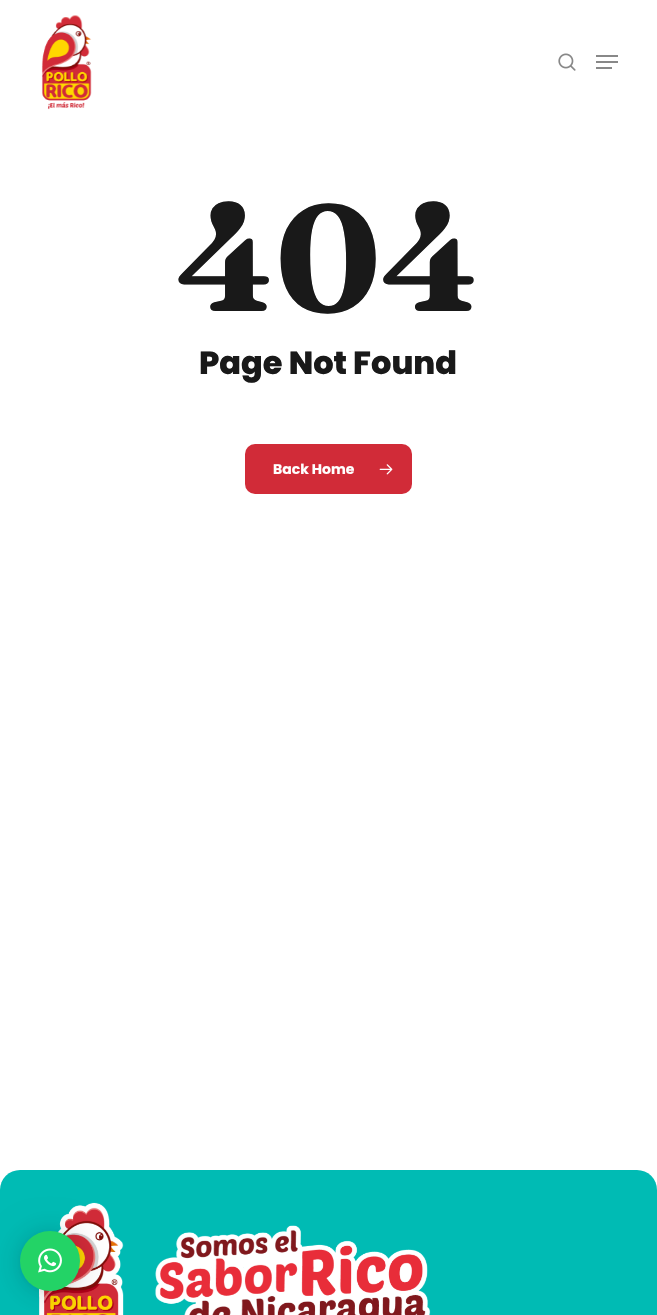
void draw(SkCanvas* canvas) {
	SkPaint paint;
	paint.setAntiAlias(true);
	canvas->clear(0xffffffff);
	canvas->drawImageRect(SkImages::DeferredFromEncodedData(SkData::MakeFromFileName("img1.png")), SkRect::MakeXYWH(41, 15, 51, 95), SkSamplingOptions());
	canvas->drawImageRect(SkImages::DeferredFromEncodedData(SkData::MakeFromFileName("img2.png")), SkRect::MakeXYWH(558, 53, 18, 18), SkSamplingOptions());
	paint.setColor(0xff888888);
	canvas->drawRect(SkRect::MakeXYWH(596, 55, 22, 2), paint);
	canvas->drawRect(SkRect::MakeXYWH(596, 67, 16, 2), paint);
	canvas->drawRect(SkRect::MakeXYWH(596, 61, 22, 2), paint);
	SkFont f1(fontMgr->matchFamilyStyle("Fraunces", SkFontStyle::Bold()), 150);
	f1.setSubpixel(true);
	paint.setColor(0xff191919);
	canvas->drawString("404", 176, 311, f1, paint);
	SkFont f2(fontMgr->matchFamilyStyle("Poppins", SkFontStyle(800, SkFontStyle::kNormal_Width, SkFontStyle::kUpright_Slant)), 32);
	f2.setSubpixel(true);
	canvas->drawString("Page Not Found", 199, 374, f2, paint);
	paint.setColor(0xffd12b38);
	canvas->drawRoundRect(SkRect::MakeXYWH(245, 444, 167, 50), 10, 10, paint);
	SkFont f3(fontMgr->matchFamilyStyle("Poppins", SkFontStyle::Bold()), 14);
	f3.setSubpixel(true);
	paint.setColor(0xffffffff);
	canvas->drawString("Back Home", 273, 474, f3, paint);
	canvas->drawImageRect(SkImages::DeferredFromEncodedData(SkData::MakeFromFileName("img3.png")), SkRect::MakeXYWH(379, 464, 14, 11), SkSamplingOptions());
	paint.setColor(0xff00bbb4);
	canvas->drawRoundRect(SkRect::MakeXYWH(0, 1170, 657, 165), 20, 20, paint);
	canvas->drawImageRect(SkImages::DeferredFromEncodedData(SkData::MakeFromFileName("img4.png")), SkRect::MakeXYWH(39, 1202, 392, 113), SkSamplingOptions());
	paint.setColor(0x29000000);
	paint.setMaskFilter(SkMaskFilter::MakeBlur(kNormal_SkBlurStyle, 16));
	canvas->drawRoundRect(SkRect::MakeXYWH(20, 1233, 60, 60), 30, 30, paint);
	paint.setMaskFilter(nullptr);
	paint.setColor(0x0f000000);
	paint.setMaskFilter(SkMaskFilter::MakeBlur(kNormal_SkBlurStyle, 3));
	canvas->drawRoundRect(SkRect::MakeXYWH(20, 1232, 60, 60), 30, 30, paint);
	paint.setMaskFilter(nullptr);
	paint.setColor(0xff23d366);
	canvas->drawCircle(50, 1261, 30, paint);
	canvas->drawImageRect(SkImages::DeferredFromEncodedData(SkData::MakeFromFileName("img5.png")), SkRect::MakeXYWH(38, 1248, 24, 25), SkSamplingOptions());
}
